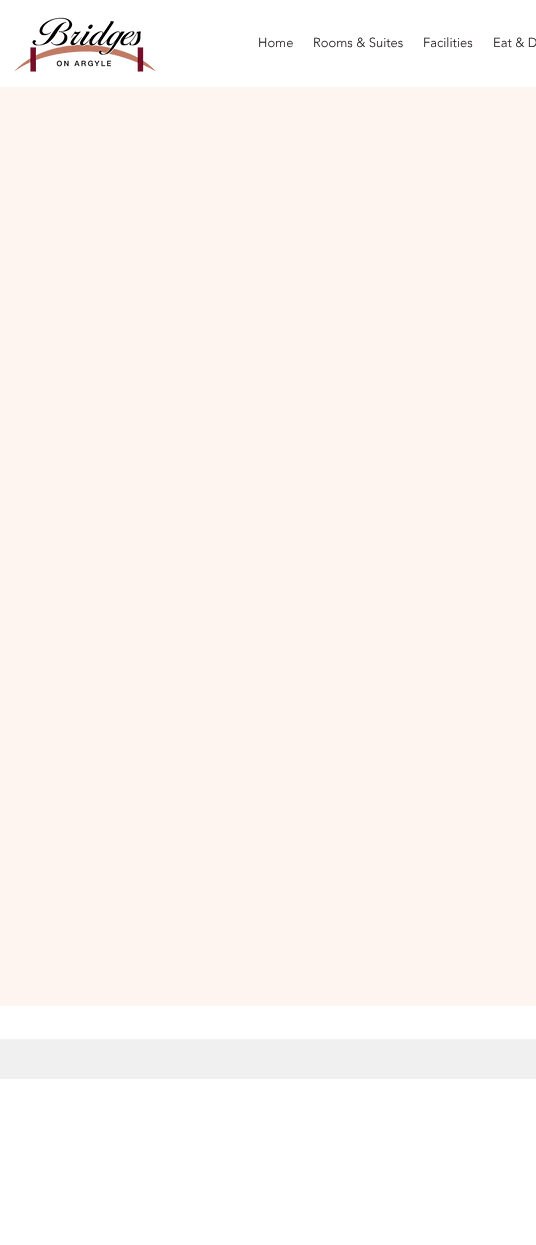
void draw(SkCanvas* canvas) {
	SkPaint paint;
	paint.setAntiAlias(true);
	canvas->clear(0xffffffff);
	canvas->drawImageRect(SkImages::DeferredFromEncodedData(SkData::MakeFromFileName("img1.png")), SkRect::MakeXYWH(14, 17, 142, 55), SkSamplingOptions());
	SkFont f1(fontMgr->matchFamilyStyle("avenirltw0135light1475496", SkFontStyle(300, SkFontStyle::kNormal_Width, SkFontStyle::kUpright_Slant)), 13);
	f1.setSubpixel(true);
	paint.setColor(0xff2c2729);
	canvas->drawString("Home", 258, 47, f1, paint);
	canvas->drawString("Rooms & Suites", 313, 47, f1, paint);
	canvas->drawString("Facilities", 423, 47, f1, paint);
	canvas->drawString("Eat & D", 493, 47, f1, paint);
	paint.setColor(0xfffff5f0);
	canvas->drawRect(SkRect::MakeXYWH(0, 87, 536, 919), paint);
	paint.setColor(0xfff0f0f0);
	canvas->drawRect(SkRect::MakeXYWH(0, 1040, 536, 39), paint);
	paint.setColor(0xfff2f2f2);
	canvas->drawRect(SkRect::MakeXYWH(0, 1039, 536, 1), paint);
}
